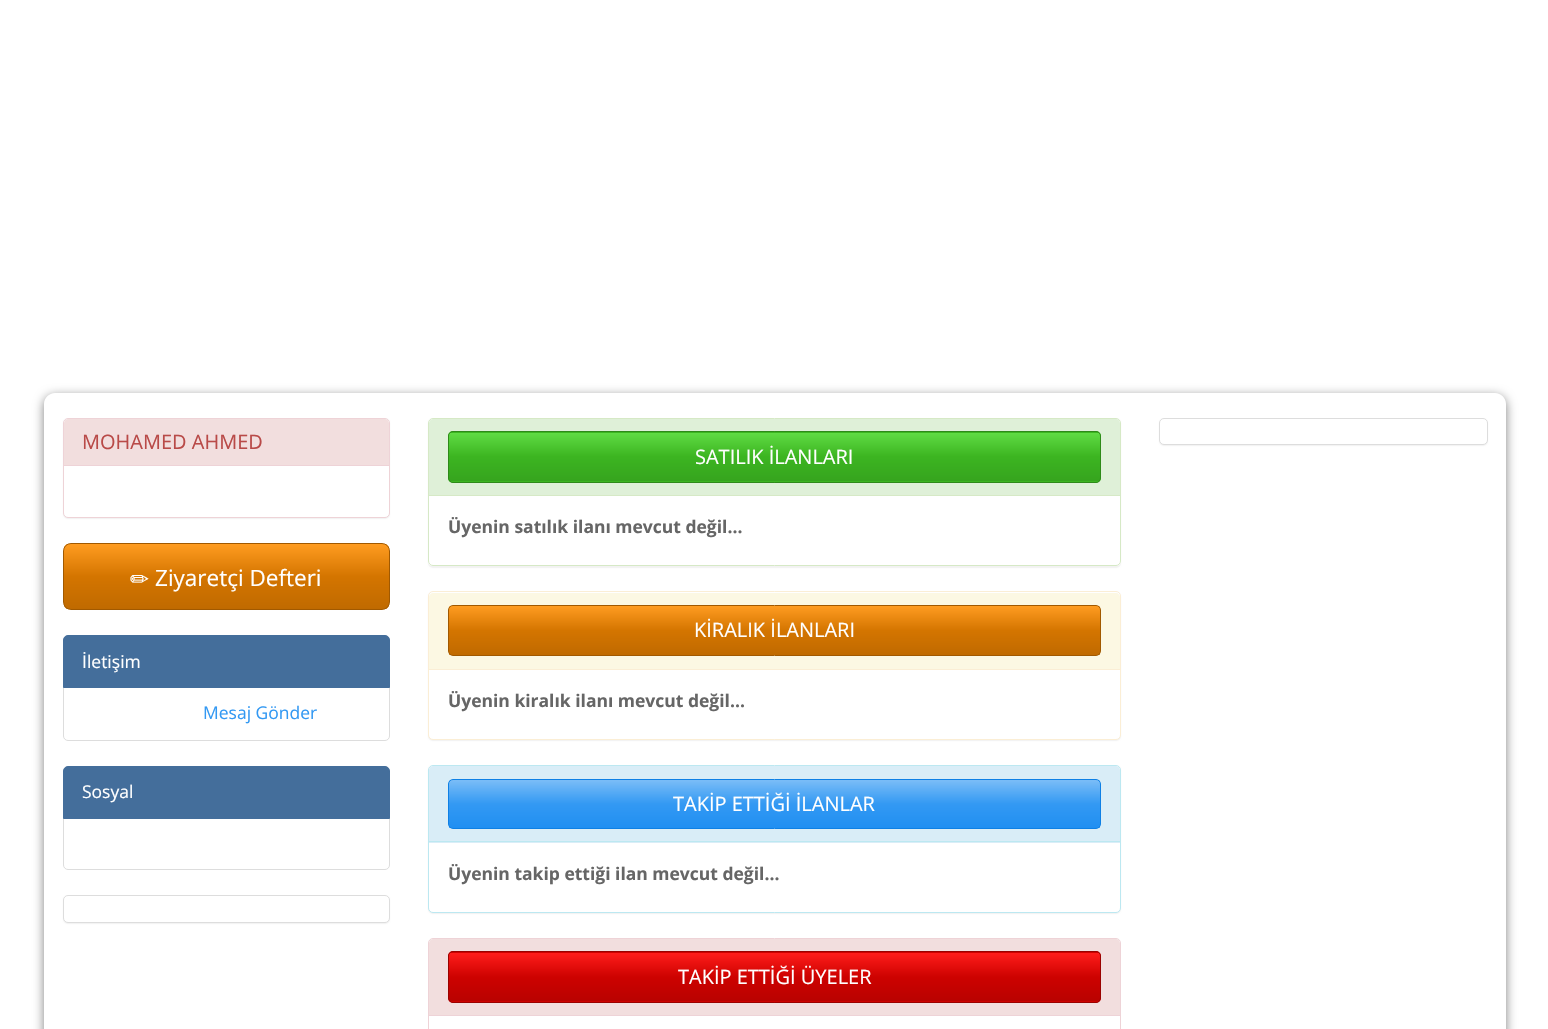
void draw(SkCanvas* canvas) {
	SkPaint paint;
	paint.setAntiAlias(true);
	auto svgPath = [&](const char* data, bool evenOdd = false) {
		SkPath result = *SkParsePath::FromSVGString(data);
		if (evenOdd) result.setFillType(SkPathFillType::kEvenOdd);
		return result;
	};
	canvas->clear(0xffffffff);
	canvas->save();
	canvas->clipPath(svgPath("M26 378H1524V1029H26ZM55 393H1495C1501 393 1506 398 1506 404V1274C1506 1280 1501 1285 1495 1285H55C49 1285 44 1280 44 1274V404C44 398 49 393 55 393Z", true), true);
	paint.setColor(0x80000000);
	paint.setMaskFilter(SkMaskFilter::MakeBlur(kNormal_SkBlurStyle, 5.5));
	canvas->drawRoundRect(SkRect::MakeXYWH(44, 396, 1462, 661), 11, 11, paint);
	paint.setMaskFilter(nullptr);
	canvas->restore();
	paint.setColor(0x0d000000);
	paint.setMaskFilter(SkMaskFilter::MakeBlur(kNormal_SkBlurStyle, 0.5));
	canvas->drawRoundRect(SkRect::MakeXYWH(63, 419, 327, 100), 5, 5, paint);
	paint.setMaskFilter(nullptr);
	paint.setColor(0xffffffff);
	canvas->drawRoundRect(SkRect::MakeXYWH(63.5, 418.5, 326, 99), 4.5, 4.5, paint);
	paint.setStroke(true);
	paint.setStrokeWidth(1);
	paint.setColor(0xffeed3d7);
	canvas->drawRoundRect(SkRect::MakeXYWH(63.5, 418.5, 326, 99), 4.5, 4.5, paint);
	paint.setStroke(false);
	paint.setColor(0xfff2dede);
	canvas->drawPath(svgPath("M68 419H385C387 419 389 421 389 423V466H64V423C64 421 66 419 68 419Z"), paint);
	paint.setColor(0xffeed3d7);
	canvas->drawRect(SkRect::MakeXYWH(64, 465, 325, 1), paint);
	SkFont f1(fontMgr->matchFamilyStyle("Open Sans", SkFontStyle::Normal()), 20);
	f1.setSubpixel(true);
	paint.setColor(0xffb94a48);
	canvas->drawString("MOHAMED AHMED", 82, 449, f1, paint);
	canvas->save();
	canvas->clipPath(svgPath("M71 543H382C386.5 543 390 546.5 390 551V602C390 606.5 386.5 610 382 610H71C66.5 610 63 606.5 63 602V551C63 546.5 66.5 543 71 543Z"), true);
	{
		const SkColor colors[] = {0xffff9c21, 0xffd47500, 0xffc06a00};
		const float stops[] = {0, 0.5, 1};
		const SkPoint ends[] = {{226, 544}, {226, 609}};
		paint.setShader(SkGradientShader::MakeLinear(ends, colors, stops, 3, SkTileMode::kClamp));
		paint.setAlpha(255);
	}
	canvas->drawRect(SkRect::MakeXYWH(64, 544, 325, 65), paint);
	canvas->restore();
	paint.setStroke(true);
	paint.setShader(nullptr);
	paint.setColor(0xffa15900);
	canvas->drawRoundRect(SkRect::MakeXYWH(63.5, 543.5, 326, 66), 7.5, 7.5, paint);
	SkFont f2(fontMgr->matchFamilyStyle("DejaVu Sans", SkFontStyle::Normal()), 22.5);
	f2.setSubpixel(true);
	paint.setStroke(false);
	paint.setColor(0xffffffff);
	canvas->drawString("✏", 130, 587, f2, paint);
	SkFont f3(fontMgr->matchFamilyStyle("Open Sans", SkFontStyle::Normal()), 22.5);
	f3.setSubpixel(true);
	canvas->drawString("Ziyaretçi Defteri", 155, 586, f3, paint);
	paint.setStroke(true);
	paint.setColor(0xffdddddd);
	canvas->drawPath(svgPath("M63.5 686.5H389.5V736C389.5 738.5 387.5 740.5 385 740.5H68C65.5 740.5 63.5 738.5 63.5 736Z"), paint);
	paint.setStroke(false);
	paint.setColor(0xff446e9b);
	canvas->drawPath(svgPath("M68 635.5H385C387.5 635.5 389.5 637.5 389.5 640V687.5H63.5V640C63.5 637.5 65.5 635.5 68 635.5Z"), paint);
	paint.setStroke(true);
	canvas->drawPath(svgPath("M68 635.5H385C387.5 635.5 389.5 637.5 389.5 640V687.5H63.5V640C63.5 637.5 65.5 635.5 68 635.5Z"), paint);
	SkFont f4(fontMgr->matchFamilyStyle("Open Sans", SkFontStyle::Normal()), 17.5);
	f4.setSubpixel(true);
	paint.setStroke(false);
	paint.setColor(0xffffffff);
	canvas->drawString("İletişim", 82, 668, f4, paint);
	paint.setColor(0xff3399f3);
	canvas->drawString("Mesaj Gönder", 203, 719, f4, paint);
	paint.setStroke(true);
	paint.setColor(0xffdddddd);
	canvas->drawPath(svgPath("M63.5 818.5H389.5V865C389.5 867.5 387.5 869.5 385 869.5H68C65.5 869.5 63.5 867.5 63.5 865Z"), paint);
	paint.setStroke(false);
	paint.setColor(0xff446e9b);
	canvas->drawPath(svgPath("M68 766.5H385C387.5 766.5 389.5 768.5 389.5 771V818.5H63.5V771C63.5 768.5 65.5 766.5 68 766.5Z"), paint);
	paint.setStroke(true);
	canvas->drawPath(svgPath("M68 766.5H385C387.5 766.5 389.5 768.5 389.5 771V818.5H63.5V771C63.5 768.5 65.5 766.5 68 766.5Z"), paint);
	paint.setStroke(false);
	paint.setColor(0xffffffff);
	canvas->drawString("Sosyal", 82, 798, f4, paint);
	paint.setColor(0x0d000000);
	paint.setMaskFilter(SkMaskFilter::MakeBlur(kNormal_SkBlurStyle, 0.5));
	canvas->drawRoundRect(SkRect::MakeXYWH(63, 896, 327, 28), 5, 5, paint);
	paint.setMaskFilter(nullptr);
	paint.setColor(0xffffffff);
	canvas->drawRoundRect(SkRect::MakeXYWH(63.5, 895.5, 326, 27), 4.5, 4.5, paint);
	paint.setStroke(true);
	paint.setColor(0xffdddddd);
	canvas->drawRoundRect(SkRect::MakeXYWH(63.5, 895.5, 326, 27), 4.5, 4.5, paint);
	canvas->save();
	canvas->clipPath(svgPath("M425 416H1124V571H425ZM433 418H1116C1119 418 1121 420 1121 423V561C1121 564 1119 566 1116 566H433C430 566 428 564 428 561V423C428 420 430 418 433 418Z", true), true);
	paint.setStroke(false);
	paint.setColor(0x0d000000);
	paint.setMaskFilter(SkMaskFilter::MakeBlur(kNormal_SkBlurStyle, 0.5));
	canvas->drawRoundRect(SkRect::MakeXYWH(428, 419, 693, 149), 5, 5, paint);
	paint.setMaskFilter(nullptr);
	canvas->restore();
	paint.setStroke(true);
	paint.setColor(0xffd6e9c6);
	canvas->drawRoundRect(SkRect::MakeXYWH(428.5, 418.5, 692, 147), 4.5, 4.5, paint);
	paint.setStroke(false);
	paint.setColor(0xffdff0d8);
	canvas->drawPath(svgPath("M433 419H1116C1118 419 1120 421 1120 423V496H429V423C429 421 431 419 433 419Z"), paint);
	paint.setColor(0xffd6e9c6);
	canvas->drawRect(SkRect::MakeXYWH(429, 495, 691, 1), paint);
	paint.setColor(0xff3cb521);
	canvas->drawRoundRect(SkRect::MakeXYWH(448, 431, 653, 52), 5, 5, paint);
	{
		const SkColor colors[] = {0xff61dd45, 0xff3cb521, 0xff36a41e};
		const float stops[] = {0, 0.5, 1};
		const SkPoint ends[] = {{774, 432}, {774, 481}};
		paint.setShader(SkGradientShader::MakeLinear(ends, colors, stops, 3, SkTileMode::kClamp));
		paint.setAlpha(255);
	}
	canvas->drawRect(SkRect::MakeXYWH(449, 433, 651, 48), paint);
	paint.setStroke(true);
	paint.setShader(nullptr);
	paint.setColor(0xff2e8a19);
	canvas->drawRoundRect(SkRect::MakeXYWH(448.5, 431.5, 652, 51), 4.5, 4.5, paint);
	paint.setStroke(false);
	paint.setColor(0xffffffff);
	canvas->drawString("SATILIK İLANLARI", 695, 464, f1, paint);
	SkFont f5(fontMgr->matchFamilyStyle("Open Sans", SkFontStyle::Bold()), 17.5);
	f5.setSubpixel(true);
	paint.setColor(0xff666666);
	canvas->drawString("Üyenin satılık ilanı mevcut değil...", 448, 533, f5, paint);
	paint.setColor(0x0d000000);
	paint.setMaskFilter(SkMaskFilter::MakeBlur(kNormal_SkBlurStyle, 0.5));
	canvas->drawRoundRect(SkRect::MakeXYWH(428, 593, 693, 148), 5, 5, paint);
	paint.setMaskFilter(nullptr);
	paint.setColor(0xffffffff);
	canvas->drawRoundRect(SkRect::MakeXYWH(428.5, 591.5, 692, 148), 4.5, 4.5, paint);
	paint.setStroke(true);
	paint.setColor(0xfffbeed5);
	canvas->drawRoundRect(SkRect::MakeXYWH(428.5, 591.5, 692, 148), 4.5, 4.5, paint);
	paint.setStroke(false);
	paint.setColor(0xfffcf8e3);
	canvas->drawPath(svgPath("M433 593H1116C1118 593 1120 595 1120 597V670H429V597C429 595 431 593 433 593Z"), paint);
	paint.setColor(0xfffbeed5);
	canvas->drawRect(SkRect::MakeXYWH(429, 669, 691, 1), paint);
	canvas->save();
	canvas->clipPath(svgPath("M453 605H1096C1099 605 1101 607 1101 610V651C1101 654 1099 656 1096 656H453C450 656 448 654 448 651V610C448 607 450 605 453 605Z"), true);
	{
		const SkColor colors[] = {0xffff9c21, 0xffd47500, 0xffc06a00};
		const float stops[] = {0, 0.5, 1};
		const SkPoint ends[] = {{774, 606}, {774, 655}};
		paint.setShader(SkGradientShader::MakeLinear(ends, colors, stops, 3, SkTileMode::kClamp));
		paint.setAlpha(255);
	}
	canvas->drawRect(SkRect::MakeXYWH(449, 606, 651, 49), paint);
	canvas->restore();
	paint.setStroke(true);
	paint.setShader(nullptr);
	paint.setColor(0xffa15900);
	canvas->drawRoundRect(SkRect::MakeXYWH(448.5, 605.5, 652, 50), 4.5, 4.5, paint);
	paint.setStroke(false);
	paint.setColor(0xffffffff);
	canvas->drawString("KİRALIK İLANLARI", 694, 637, f1, paint);
	paint.setColor(0xff666666);
	canvas->drawString("Üyenin kiralık ilanı mevcut değil...", 448, 707, f5, paint);
	paint.setColor(0x0d000000);
	paint.setMaskFilter(SkMaskFilter::MakeBlur(kNormal_SkBlurStyle, 0.5));
	canvas->drawRoundRect(SkRect::MakeXYWH(428, 766, 693, 148), 5, 5, paint);
	paint.setMaskFilter(nullptr);
	paint.setColor(0xffffffff);
	canvas->drawRoundRect(SkRect::MakeXYWH(428.5, 765.5, 692, 147), 4.5, 4.5, paint);
	paint.setStroke(true);
	paint.setColor(0xffbce8f1);
	canvas->drawRoundRect(SkRect::MakeXYWH(428.5, 765.5, 692, 147), 4.5, 4.5, paint);
	paint.setStroke(false);
	paint.setColor(0xffd9edf7);
	canvas->drawPath(svgPath("M433 766H1116C1118 766 1120 768 1120 770V843H429V770C429 768 431 766 433 766Z"), paint);
	paint.setColor(0xffbce8f1);
	canvas->drawRect(SkRect::MakeXYWH(429, 841, 691, 1), paint);
	canvas->save();
	canvas->clipPath(svgPath("M453 779H1096C1099 779 1101 781 1101 784V824C1101 827 1099 829 1096 829H453C450 829 448 827 448 824V784C448 781 450 779 453 779Z"), true);
	{
		const SkColor colors[] = {0xff7bbdf7, 0xff3399f3, 0xff208ff2};
		const float stops[] = {0, 0.5, 1};
		const SkPoint ends[] = {{774, 780}, {774, 828}};
		paint.setShader(SkGradientShader::MakeLinear(ends, colors, stops, 3, SkTileMode::kClamp));
		paint.setAlpha(255);
	}
	canvas->drawRect(SkRect::MakeXYWH(449, 780, 651, 48), paint);
	canvas->restore();
	paint.setStroke(true);
	paint.setShader(nullptr);
	paint.setColor(0xff0e80e5);
	canvas->drawRoundRect(SkRect::MakeXYWH(448.5, 779.5, 652, 49), 4.5, 4.5, paint);
	paint.setStroke(false);
	paint.setColor(0xffffffff);
	canvas->drawString("TAKİP ETTİĞİ İLANLAR", 673, 811, f1, paint);
	paint.setColor(0xff666666);
	canvas->drawString("Üyenin takip ettiği ilan mevcut değil...", 448, 880, f5, paint);
	paint.setStroke(true);
	paint.setColor(0xffeed3d7);
	canvas->drawRoundRect(SkRect::MakeXYWH(428.5, 938.5, 692, 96), 4.5, 4.5, paint);
	paint.setStroke(false);
	paint.setColor(0xfff2dede);
	canvas->drawPath(svgPath("M433 939H1116C1118 939 1120 941 1120 943V1016H429V943C429 941 431 939 433 939Z"), paint);
	paint.setColor(0xffeed3d7);
	canvas->drawRect(SkRect::MakeXYWH(429, 1015, 691, 1), paint);
	paint.setColor(0xffcd0200);
	canvas->drawRoundRect(SkRect::MakeXYWH(448, 951, 653, 52), 5, 5, paint);
	{
		const SkColor colors[] = {0xffff1d1b, 0xffcd0200, 0xffb90200};
		const float stops[] = {0, 0.5, 1};
		const SkPoint ends[] = {{774, 953}, {774, 1001}};
		paint.setShader(SkGradientShader::MakeLinear(ends, colors, stops, 3, SkTileMode::kClamp));
		paint.setAlpha(255);
	}
	canvas->drawRect(SkRect::MakeXYWH(449, 953, 651, 48), paint);
	paint.setStroke(true);
	paint.setShader(nullptr);
	paint.setColor(0xff9a0200);
	canvas->drawRoundRect(SkRect::MakeXYWH(448.5, 951.5, 652, 51), 4.5, 4.5, paint);
	paint.setStroke(false);
	paint.setColor(0xffffffff);
	canvas->drawString("TAKİP ETTİĞİ ÜYELER", 678, 984, f1, paint);
	paint.setColor(0x0d000000);
	paint.setMaskFilter(SkMaskFilter::MakeBlur(kNormal_SkBlurStyle, 0.5));
	canvas->drawRoundRect(SkRect::MakeXYWH(1159, 419, 329, 27), 5, 5, paint);
	paint.setMaskFilter(nullptr);
	paint.setColor(0xffffffff);
	canvas->drawRoundRect(SkRect::MakeXYWH(1159.5, 418.5, 328, 26), 4.5, 4.5, paint);
	paint.setStroke(true);
	paint.setColor(0xffdddddd);
	canvas->drawRoundRect(SkRect::MakeXYWH(1159.5, 418.5, 328, 26), 4.5, 4.5, paint);
}
